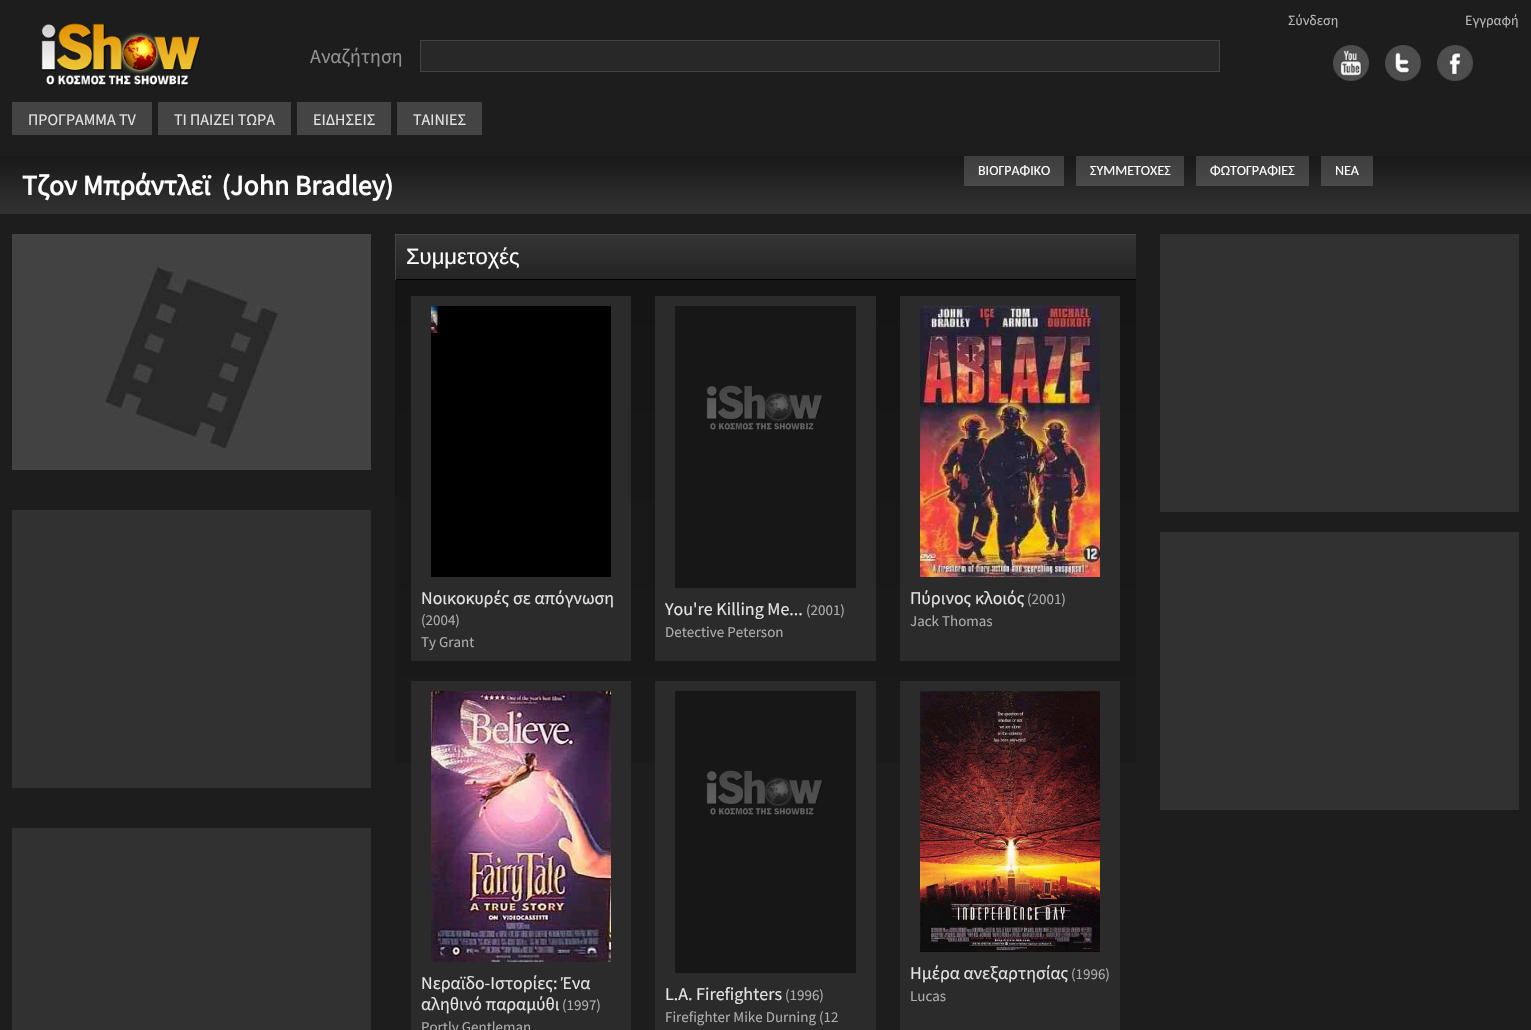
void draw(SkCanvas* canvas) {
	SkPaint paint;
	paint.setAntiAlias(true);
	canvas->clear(0xff1d1d1d);
	SkFont f1(fontMgr->matchFamilyStyle("Source Sans Pro", SkFontStyle::Normal()), 14);
	f1.setSubpixel(true);
	paint.setColor(0xffb9b9b9);
	canvas->drawString("Σύνδεση", 1288, 25, f1, paint);
	canvas->drawString("Εγγραφή", 1465, 25, f1, paint);
	canvas->drawImageRect(SkImages::DeferredFromEncodedData(SkData::MakeFromFileName("img1.png")), SkRect::MakeXYWH(1333, 45, 36, 36), SkSamplingOptions());
	canvas->drawImageRect(SkImages::DeferredFromEncodedData(SkData::MakeFromFileName("img2.png")), SkRect::MakeXYWH(1385, 45, 36, 36), SkSamplingOptions());
	canvas->drawImageRect(SkImages::DeferredFromEncodedData(SkData::MakeFromFileName("img3.png")), SkRect::MakeXYWH(1437, 45, 36, 36), SkSamplingOptions());
	canvas->drawImageRect(SkImages::DeferredFromEncodedData(SkData::MakeFromFileName("img4.png")), SkRect::MakeXYWH(41, 23, 160, 63), SkSamplingOptions());
	SkFont f2(fontMgr->matchFamilyStyle("Source Sans Pro", SkFontStyle::Normal()), 20);
	f2.setSubpixel(true);
	paint.setColor(0xff929292);
	canvas->drawString("Αναζήτηση", 310, 63, f2, paint);
	paint.setColor(0xff282828);
	canvas->drawRect(SkRect::MakeXYWH(420.5, 40.5, 799, 31), paint);
	paint.setStroke(true);
	paint.setStrokeWidth(1);
	paint.setColor(0xff434343);
	canvas->drawRect(SkRect::MakeXYWH(420.5, 40.5, 799, 31), paint);
	paint.setStroke(false);
	paint.setColor(0xff444444);
	canvas->drawRect(SkRect::MakeXYWH(12, 102, 140, 33), paint);
	SkFont f3(fontMgr->matchFamilyStyle("Source Sans Pro", SkFontStyle::Normal()), 16);
	f3.setSubpixel(true);
	paint.setColor(0xffe3e3e3);
	canvas->drawString("ΠΡΟΓΡΑΜΜΑ TV", 28, 125, f3, paint);
	paint.setColor(0xff444444);
	canvas->drawRect(SkRect::MakeXYWH(158, 102, 133, 33), paint);
	paint.setColor(0xffe3e3e3);
	canvas->drawString("ΤΙ ΠΑΙΖΕΙ ΤΩΡΑ", 174, 125, f3, paint);
	paint.setColor(0xff444444);
	canvas->drawRect(SkRect::MakeXYWH(297, 102, 94, 33), paint);
	paint.setColor(0xffe3e3e3);
	canvas->drawString("ΕΙΔΗΣΕΙΣ", 313, 125, f3, paint);
	paint.setColor(0xff444444);
	canvas->drawRect(SkRect::MakeXYWH(397, 102, 85, 33), paint);
	paint.setColor(0xffe3e3e3);
	canvas->drawString("ΤΑΙΝΙΕΣ", 413, 125, f3, paint);
	{
		const SkColor colors[] = {0xff181818, 0xff333333};
		const float stops[] = {0, 1};
		const SkPoint ends[] = {{766, 156}, {766, 214}};
		paint.setShader(SkGradientShader::MakeLinear(ends, colors, stops, 2, SkTileMode::kClamp));
		paint.setAlpha(255);
	}
	canvas->drawRect(SkRect::MakeXYWH(0, 156, 1531, 58), paint);
	{
		const SkColor colors[] = {0xff3e3e3e, 0xff4a4a4a};
		const float stops[] = {0, 1};
		const SkPoint ends[] = {{1014, 156}, {1014, 186}};
		paint.setShader(SkGradientShader::MakeLinear(ends, colors, stops, 2, SkTileMode::kClamp));
		paint.setAlpha(255);
	}
	canvas->drawRect(SkRect::MakeXYWH(964, 156, 100, 30), paint);
	SkFont f4(fontMgr->matchFamilyStyle("Carlito", SkFontStyle::Normal()), 14);
	f4.setSubpixel(true);
	paint.setShader(nullptr);
	paint.setColor(0xffffffff);
	canvas->drawString("ΒΙΟΓΡΑΦΙΚΟ", 978, 175, f4, paint);
	{
		const SkColor colors[] = {0xff3e3e3e, 0xff4a4a4a};
		const float stops[] = {0, 1};
		const SkPoint ends[] = {{1130, 156}, {1130, 186}};
		paint.setShader(SkGradientShader::MakeLinear(ends, colors, stops, 2, SkTileMode::kClamp));
		paint.setAlpha(255);
	}
	canvas->drawRect(SkRect::MakeXYWH(1076, 156, 108, 30), paint);
	paint.setShader(nullptr);
	paint.setColor(0xffffffff);
	canvas->drawString("ΣΥΜΜΕΤΟΧΕΣ", 1090, 175, f4, paint);
	{
		const SkColor colors[] = {0xff3e3e3e, 0xff4a4a4a};
		const float stops[] = {0, 1};
		const SkPoint ends[] = {{1253, 156}, {1253, 186}};
		paint.setShader(SkGradientShader::MakeLinear(ends, colors, stops, 2, SkTileMode::kClamp));
		paint.setAlpha(255);
	}
	canvas->drawRect(SkRect::MakeXYWH(1196, 156, 113, 30), paint);
	paint.setShader(nullptr);
	paint.setColor(0xffffffff);
	canvas->drawString("ΦΩΤΟΓΡΑΦΙΕΣ", 1210, 175, f4, paint);
	{
		const SkColor colors[] = {0xff3e3e3e, 0xff4a4a4a};
		const float stops[] = {0, 1};
		const SkPoint ends[] = {{1347, 156}, {1347, 186}};
		paint.setShader(SkGradientShader::MakeLinear(ends, colors, stops, 2, SkTileMode::kClamp));
		paint.setAlpha(255);
	}
	canvas->drawRect(SkRect::MakeXYWH(1321, 156, 52, 30), paint);
	paint.setShader(nullptr);
	paint.setColor(0xffffffff);
	canvas->drawString("ΝΕΑ", 1335, 175, f4, paint);
	SkFont f5(fontMgr->matchFamilyStyle("Source Sans Pro", SkFontStyle::Bold()), 28);
	f5.setSubpixel(true);
	canvas->drawString("Τζον Μπράντλεϊ  (John Bradley)", 22, 195, f5, paint);
	canvas->drawImageRect(SkImages::DeferredFromEncodedData(SkData::MakeFromFileName("img5.png")), SkRect::MakeXYWH(12, 234, 359, 236), SkSamplingOptions());
	paint.setColor(0xff313131);
	canvas->drawRect(SkRect::MakeXYWH(12, 510, 359, 278), paint);
	canvas->drawRect(SkRect::MakeXYWH(12, 828, 359, 202), paint);
	{
		const SkColor colors[] = {0xff343434, 0xff242424};
		const float stops[] = {0, 1};
		const SkPoint ends[] = {{766, 235}, {766, 279}};
		paint.setShader(SkGradientShader::MakeLinear(ends, colors, stops, 2, SkTileMode::kClamp));
		paint.setAlpha(255);
	}
	canvas->drawRect(SkRect::MakeXYWH(396, 235, 740, 44), paint);
	paint.setShader(nullptr);
	paint.setColor(0xff444444);
	canvas->drawRect(SkRect::MakeXYWH(395, 234, 741, 1), paint);
	paint.setColor(0xff000000);
	canvas->drawRect(SkRect::MakeXYWH(395, 279, 741, 1), paint);
	paint.setColor(0xff444444);
	canvas->drawRect(SkRect::MakeXYWH(395, 234, 1, 46), paint);
	SkFont f6(fontMgr->matchFamilyStyle("Liberation Sans", SkFontStyle::Normal()), 22);
	f6.setSubpixel(true);
	paint.setColor(0xffffffff);
	canvas->drawString("Συμμετοχές", 406, 264, f6, paint);
	{
		const SkColor colors[] = {0xff151515, 0xff272727};
		const float stops[] = {0, 1};
		const SkPoint ends[] = {{765, 280}, {766, 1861}};
		paint.setShader(SkGradientShader::MakeLinear(ends, colors, stops, 2, SkTileMode::kClamp));
		paint.setAlpha(255);
	}
	canvas->drawRect(SkRect::MakeXYWH(395, 280, 741, 483), paint);
	paint.setShader(nullptr);
	paint.setColor(0xff2b2b2b);
	canvas->drawRect(SkRect::MakeXYWH(411, 296, 220, 365), paint);
	canvas->drawImageRect(SkImages::DeferredFromEncodedData(SkData::MakeFromFileName("img6.png")), SkRect::MakeXYWH(431, 306, 180, 271), SkSamplingOptions());
	SkFont f7(fontMgr->matchFamilyStyle("Source Sans Pro", SkFontStyle::Normal()), 18);
	f7.setSubpixel(true);
	paint.setColor(0xffe3e3e3);
	canvas->drawString("Νοικοκυρές σε απόγνωση", 421, 604, f7, paint);
	SkFont f8(fontMgr->matchFamilyStyle("Source Sans Pro", SkFontStyle::Normal()), 15);
	f8.setSubpixel(true);
	paint.setColor(0xffadadad);
	canvas->drawString("(2004)", 421, 625, f8, paint);
	canvas->drawString("Ty Grant", 421, 647, f8, paint);
	paint.setColor(0xff2b2b2b);
	canvas->drawRect(SkRect::MakeXYWH(655, 296, 221, 365), paint);
	canvas->drawImageRect(SkImages::DeferredFromEncodedData(SkData::MakeFromFileName("img7.png")), SkRect::MakeXYWH(675, 306, 181, 282), SkSamplingOptions());
	paint.setColor(0xffe3e3e3);
	canvas->drawString("You're Killing Me...", 665, 615, f7, paint);
	paint.setColor(0xffadadad);
	canvas->drawString("(2001)", 806, 615, f8, paint);
	canvas->drawString("Detective Peterson", 665, 637, f8, paint);
	paint.setColor(0xff2b2b2b);
	canvas->drawRect(SkRect::MakeXYWH(900, 296, 220, 365), paint);
	canvas->drawImageRect(SkImages::DeferredFromEncodedData(SkData::MakeFromFileName("img8.png")), SkRect::MakeXYWH(920, 306, 180, 271), SkSamplingOptions());
	paint.setColor(0xffe3e3e3);
	canvas->drawString("Πύρινος κλοιός", 910, 604, f7, paint);
	paint.setColor(0xffadadad);
	canvas->drawString("(2001)", 1027, 604, f8, paint);
	canvas->drawString("Jack Thomas", 910, 626, f8, paint);
	paint.setColor(0xff2b2b2b);
	canvas->drawRect(SkRect::MakeXYWH(411, 681, 220, 349), paint);
	canvas->drawImageRect(SkImages::DeferredFromEncodedData(SkData::MakeFromFileName("img9.png")), SkRect::MakeXYWH(431, 691, 180, 271), SkSamplingOptions());
	paint.setColor(0xffe3e3e3);
	canvas->drawString("Νεραϊδο-Ιστορίες: Ένα", 421, 989, f7, paint);
	canvas->drawString("αληθινό παραμύθι", 421, 1010, f7, paint);
	paint.setColor(0xffadadad);
	canvas->drawString("(1997)", 562, 1010, f8, paint);
	canvas->drawString("Portly Gentleman", 421, 1032, f8, paint);
	paint.setColor(0xff2b2b2b);
	canvas->drawRect(SkRect::MakeXYWH(655, 681, 221, 349), paint);
	canvas->drawImageRect(SkImages::DeferredFromEncodedData(SkData::MakeFromFileName("img7.png")), SkRect::MakeXYWH(675, 691, 181, 282), SkSamplingOptions());
	paint.setColor(0xffe3e3e3);
	canvas->drawString("L.A. Firefighters", 665, 1000, f7, paint);
	paint.setColor(0xffadadad);
	canvas->drawString("(1996)", 785, 1000, f8, paint);
	canvas->drawString("Firefighter Mike Durning (12", 665, 1022, f8, paint);
	paint.setColor(0xff2b2b2b);
	canvas->drawRect(SkRect::MakeXYWH(900, 681, 220, 349), paint);
	canvas->drawImageRect(SkImages::DeferredFromEncodedData(SkData::MakeFromFileName("img10.png")), SkRect::MakeXYWH(920, 691, 180, 261), SkSamplingOptions());
	paint.setColor(0xffe3e3e3);
	canvas->drawString("Ημέρα ανεξαρτησίας", 910, 979, f7, paint);
	paint.setColor(0xffadadad);
	canvas->drawString("(1996)", 1071, 979, f8, paint);
	canvas->drawString("Lucas", 910, 1001, f8, paint);
	paint.setColor(0xff313131);
	canvas->drawRect(SkRect::MakeXYWH(1160, 234, 359, 278), paint);
	canvas->drawRect(SkRect::MakeXYWH(1160, 532, 359, 278), paint);
}
